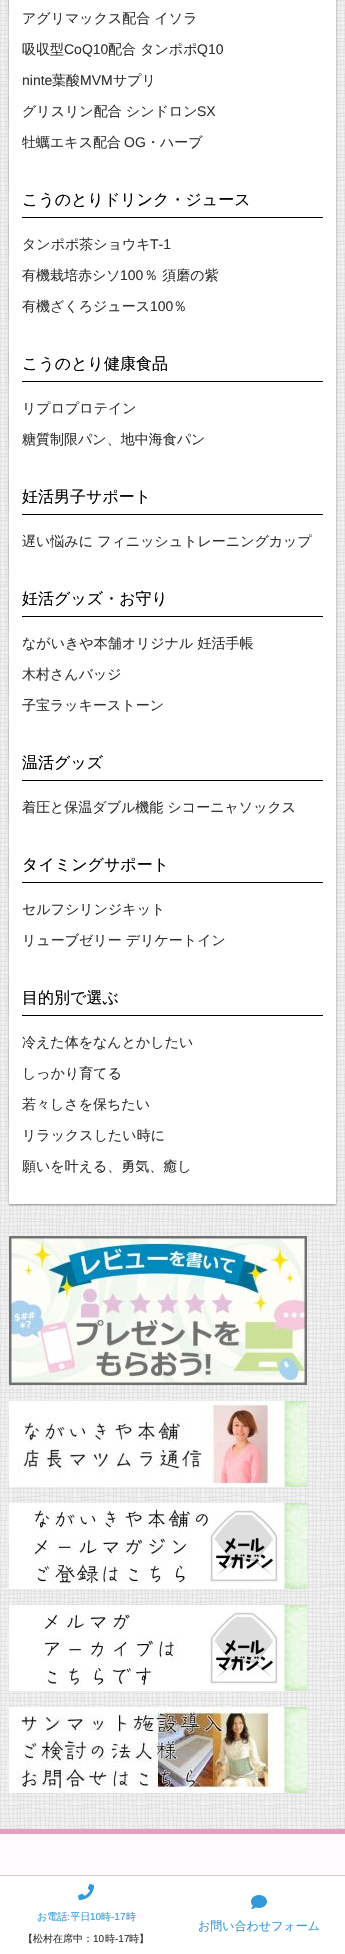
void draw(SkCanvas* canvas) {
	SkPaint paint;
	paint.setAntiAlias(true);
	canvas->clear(0xffffffff);
	canvas->drawImageRect(SkImages::DeferredFromEncodedData(SkData::MakeFromFileName("img1.png")), SkRect::MakeXYWH(0, 0, 345, 1829), SkSamplingOptions());
	paint.setColor(0x66000000);
	paint.setMaskFilter(SkMaskFilter::MakeBlur(kNormal_SkBlurStyle, 1));
	canvas->drawRect(SkRect::MakeXYWH(9, -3, 327, 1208), paint);
	paint.setMaskFilter(nullptr);
	paint.setColor(0xffffffff);
	canvas->drawRect(SkRect::MakeXYWH(9, 0, 327, 1204), paint);
	SkFont f1(fontMgr->matchFamilyStyle("WenQuanYi Zen Hei", SkFontStyle(500, SkFontStyle::kNormal_Width, SkFontStyle::kUpright_Slant)), 14);
	f1.setSubpixel(true);
	paint.setColor(0xff333333);
	canvas->drawString("アグリマックス配合 イソラ", 22, 23, f1, paint);
	canvas->drawString("吸収型", 22, 54, f1, paint);
	SkFont f2(fontMgr->matchFamilyStyle("Liberation Sans", SkFontStyle::Normal()), 14);
	f2.setSubpixel(true);
	canvas->drawString("CoQ10", 64, 54, f2, paint);
	canvas->drawString("配合 タンポポ", 108, 54, f1, paint);
	canvas->drawString("Q10", 197, 54, f2, paint);
	canvas->drawString("ninte", 22, 85, f2, paint);
	canvas->drawString("葉酸", 52, 85, f1, paint);
	canvas->drawString("MVM", 80, 85, f2, paint);
	canvas->drawString("サプリ", 113, 85, f1, paint);
	canvas->drawString("グリスリン配合 シンドロン", 22, 116, f1, paint);
	canvas->drawString("SX", 197, 116, f2, paint);
	canvas->drawString("牡蠣エキス配合", 22, 147, f1, paint);
	canvas->drawString("OG", 124, 147, f2, paint);
	canvas->drawString("・ハーブ", 146, 147, f1, paint);
	paint.setColor(0xff000000);
	canvas->drawRect(SkRect::MakeXYWH(22, 217, 301, 1), paint);
	SkFont f3(fontMgr->matchFamilyStyle("WenQuanYi Zen Hei", SkFontStyle(500, SkFontStyle::kNormal_Width, SkFontStyle::kUpright_Slant)), 16);
	f3.setSubpixel(true);
	canvas->drawString("こうのとりドリンク・ジュース", 22, 205, f3, paint);
	paint.setColor(0xff333333);
	canvas->drawString("タンポポ茶ショウキ", 22, 249, f1, paint);
	canvas->drawString("T-1", 150, 249, f2, paint);
	canvas->drawString("有機栽培赤シソ", 22, 280, f1, paint);
	canvas->drawString("100", 120, 280, f2, paint);
	canvas->drawString("％ 須磨の紫", 144, 280, f1, paint);
	canvas->drawString("有機ざくろジュース", 22, 311, f1, paint);
	canvas->drawString("100", 150, 311, f2, paint);
	canvas->drawString("％", 173, 311, f1, paint);
	paint.setColor(0xff000000);
	canvas->drawRect(SkRect::MakeXYWH(22, 381, 301, 1), paint);
	canvas->drawString("こうのとり健康食品", 22, 369, f3, paint);
	paint.setColor(0xff333333);
	canvas->drawString("リプロプロテイン", 22, 413, f1, paint);
	canvas->drawString("糖質制限パン、地中海食パン", 22, 444, f1, paint);
	paint.setColor(0xff000000);
	canvas->drawRect(SkRect::MakeXYWH(22, 514, 301, 1), paint);
	canvas->drawString("妊活男子サポート", 22, 502, f3, paint);
	paint.setColor(0xff333333);
	canvas->drawString("遅い悩みに フィニッシュトレーニングカップ", 22, 546, f1, paint);
	paint.setColor(0xff000000);
	canvas->drawRect(SkRect::MakeXYWH(22, 616, 301, 1), paint);
	canvas->drawString("妊活グッズ・お守り", 22, 604, f3, paint);
	paint.setColor(0xff333333);
	canvas->drawString("ながいきや本舗オリジナル 妊活手帳", 22, 648, f1, paint);
	canvas->drawString("木村さんバッジ", 22, 679, f1, paint);
	canvas->drawString("子宝ラッキーストーン", 22, 710, f1, paint);
	paint.setColor(0xff000000);
	canvas->drawRect(SkRect::MakeXYWH(22, 780, 301, 1), paint);
	canvas->drawString("温活グッズ", 22, 768, f3, paint);
	paint.setColor(0xff333333);
	canvas->drawString("着圧と保温ダブル機能 シコーニャソックス", 22, 812, f1, paint);
	paint.setColor(0xff000000);
	canvas->drawRect(SkRect::MakeXYWH(22, 882, 301, 1), paint);
	canvas->drawString("タイミングサポート", 22, 870, f3, paint);
	paint.setColor(0xff333333);
	canvas->drawString("セルフシリンジキット", 22, 914, f1, paint);
	canvas->drawString("リューブゼリー デリケートイン", 22, 945, f1, paint);
	paint.setColor(0xff000000);
	canvas->drawRect(SkRect::MakeXYWH(22, 1015, 301, 1), paint);
	canvas->drawString("目的別で選ぶ", 22, 1003, f3, paint);
	paint.setColor(0xff333333);
	canvas->drawString("冷えた体をなんとかしたい", 22, 1047, f1, paint);
	canvas->drawString("しっかり育てる", 22, 1078, f1, paint);
	canvas->drawString("若々しさを保ちたい", 22, 1109, f1, paint);
	canvas->drawString("リラックスしたい時に", 22, 1140, f1, paint);
	canvas->drawString("願いを叶える、勇気、癒し", 22, 1171, f1, paint);
	canvas->drawImageRect(SkImages::DeferredFromEncodedData(SkData::MakeFromFileName("img2.png")), SkRect::MakeXYWH(9, 1236, 298, 149), SkSamplingOptions());
	canvas->drawImageRect(SkImages::DeferredFromEncodedData(SkData::MakeFromFileName("img3.png")), SkRect::MakeXYWH(9, 1401, 298, 86), SkSamplingOptions());
	canvas->drawImageRect(SkImages::DeferredFromEncodedData(SkData::MakeFromFileName("img4.png")), SkRect::MakeXYWH(9, 1503, 298, 86), SkSamplingOptions());
	canvas->drawImageRect(SkImages::DeferredFromEncodedData(SkData::MakeFromFileName("img5.png")), SkRect::MakeXYWH(9, 1605, 298, 86), SkSamplingOptions());
	canvas->drawImageRect(SkImages::DeferredFromEncodedData(SkData::MakeFromFileName("img6.png")), SkRect::MakeXYWH(9, 1707, 298, 86), SkSamplingOptions());
	paint.setColor(0xfffffafe);
	canvas->drawRect(SkRect::MakeXYWH(0, 1834, 345, 41), paint);
	paint.setColor(0xffe4a1bf);
	canvas->drawRect(SkRect::MakeXYWH(0, 1829, 345, 5), paint);
	paint.setColor(0xffcccccc);
	canvas->drawRect(SkRect::MakeXYWH(0, 1875, 345, 1), paint);
	canvas->drawImageRect(SkImages::DeferredFromEncodedData(SkData::MakeFromFileName("img7.png")), SkRect::MakeXYWH(78, 1884, 16, 16), SkSamplingOptions());
	SkFont f4(fontMgr->matchFamilyStyle("WenQuanYi Zen Hei", SkFontStyle(500, SkFontStyle::kNormal_Width, SkFontStyle::kUpright_Slant)), 10);
	f4.setSubpixel(true);
	paint.setColor(0xff3498db);
	canvas->drawString("お電話 平日", 37, 1920, f4, paint);
	SkFont f5(fontMgr->matchFamilyStyle("Liberation Sans", SkFontStyle::Normal()), 10);
	f5.setSubpixel(true);
	canvas->drawString("10", 90, 1920, f5, paint);
	canvas->drawString("時", 101, 1920, f4, paint);
	canvas->drawString("-17", 111, 1920, f5, paint);
	canvas->drawString("時", 126, 1920, f4, paint);
	canvas->drawString(":", 67, 1920, f5, paint);
	paint.setColor(0xff333333);
	canvas->drawString("【松村在席中：", 23, 1942, f4, paint);
	canvas->drawString("10", 93, 1942, f5, paint);
	canvas->drawString("時", 105, 1942, f4, paint);
	canvas->drawString("-17", 115, 1942, f5, paint);
	canvas->drawString("時】", 129, 1942, f4, paint);
	canvas->drawImageRect(SkImages::DeferredFromEncodedData(SkData::MakeFromFileName("img8.png")), SkRect::MakeXYWH(251, 1895, 16, 14), SkSamplingOptions());
	SkFont f6(fontMgr->matchFamilyStyle("WenQuanYi Zen Hei", SkFontStyle(500, SkFontStyle::kNormal_Width, SkFontStyle::kUpright_Slant)), 12);
	f6.setSubpixel(true);
	paint.setColor(0xff3498db);
	canvas->drawString("お問い合わせフォーム", 198, 1930, f6, paint);
}
